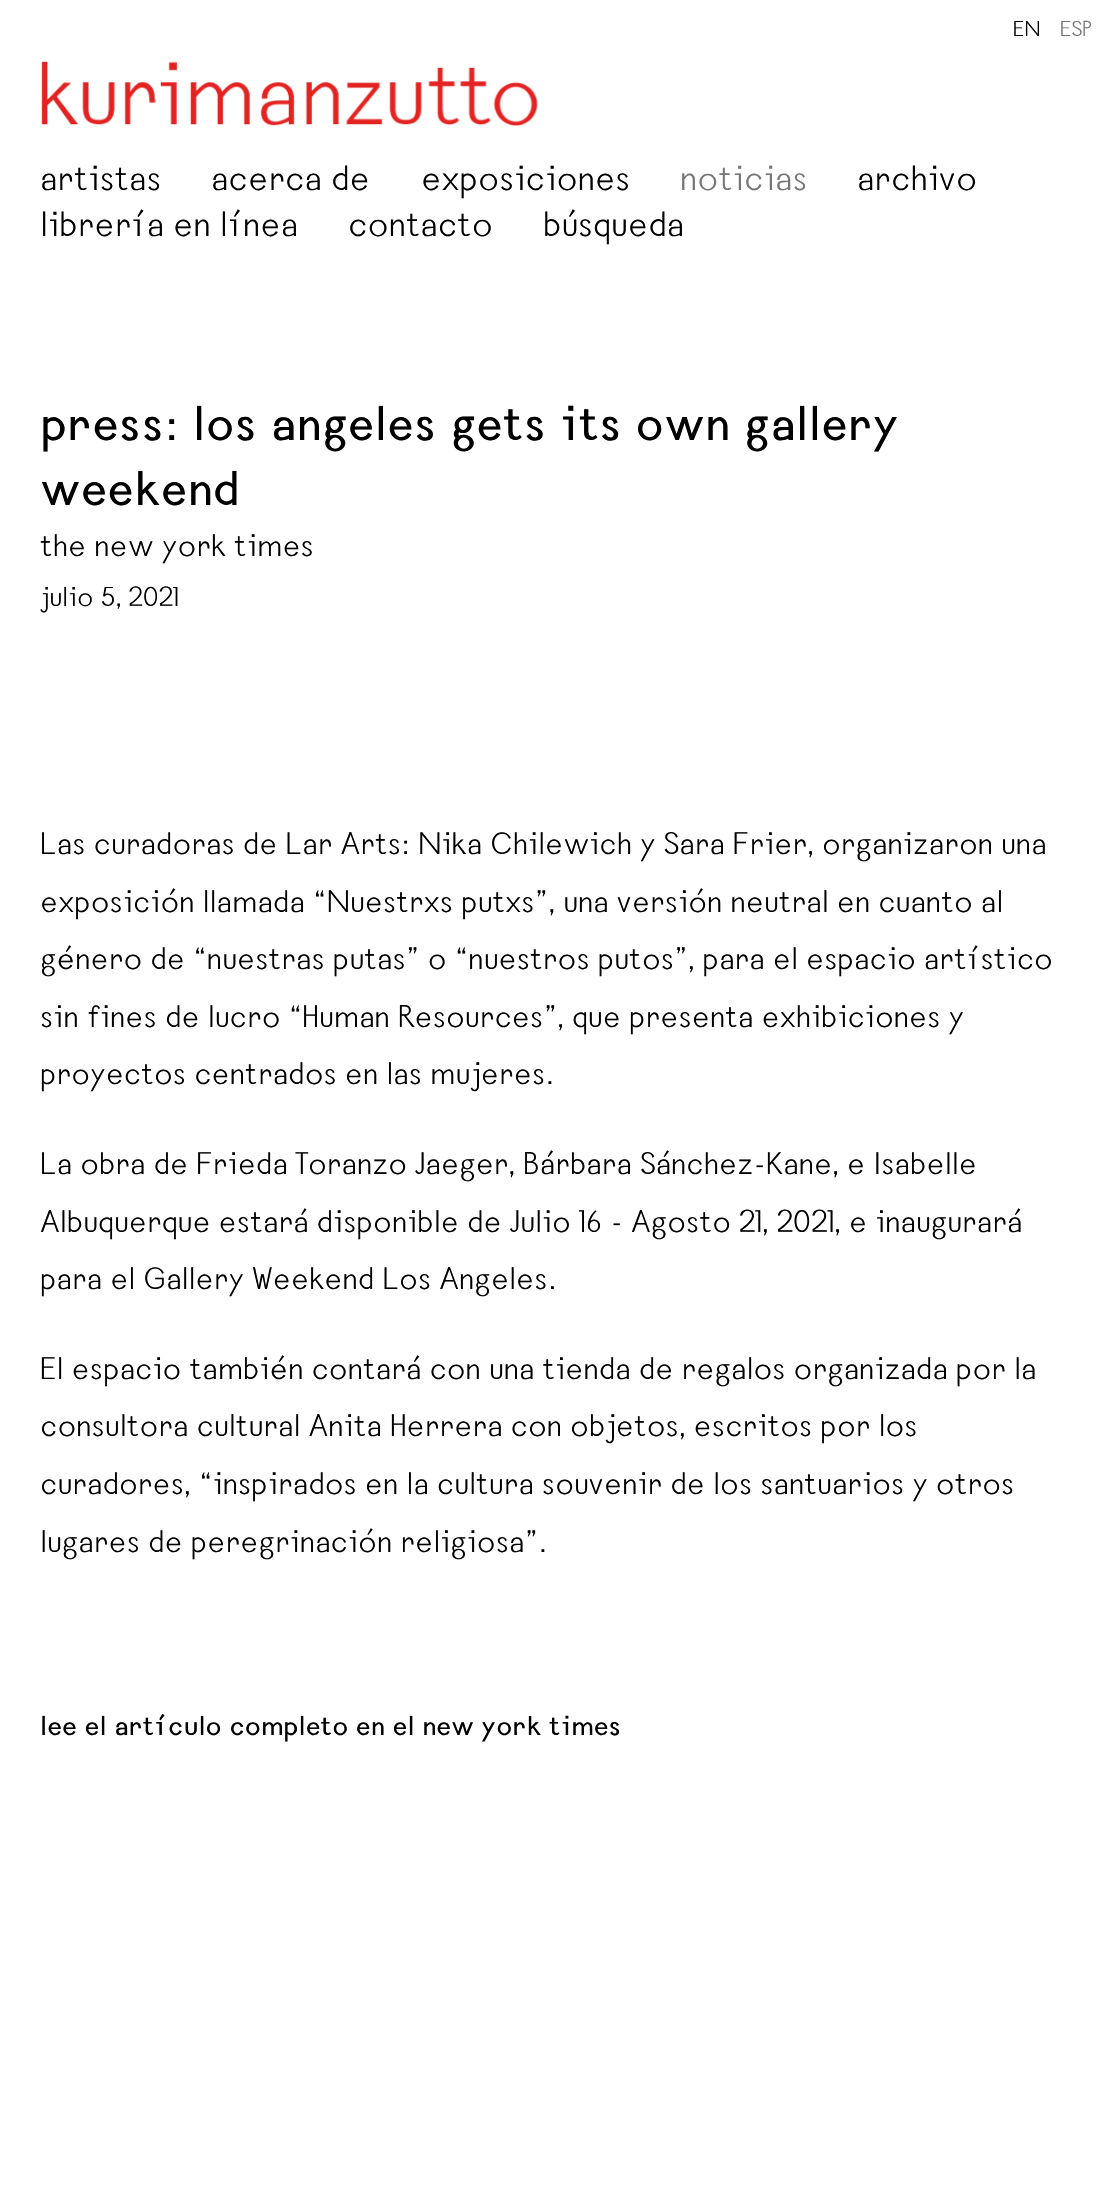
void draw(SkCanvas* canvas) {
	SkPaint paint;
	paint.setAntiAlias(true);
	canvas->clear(0xffffffff);
	SkFont f1(fontMgr->matchFamilyStyle("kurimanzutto", SkFontStyle::Normal()), 22);
	f1.setSubpixel(true);
	paint.setColor(0xff000000);
	canvas->drawString("EN", 1013, 36, f1, paint);
	paint.setColor(0xff757575);
	canvas->drawString("ESP", 1060, 36, f1, paint);
	canvas->drawImageRect(SkImages::DeferredFromEncodedData(SkData::MakeFromFileName("img1.png")), SkRect::MakeXYWH(41, 61, 497, 65), SkSamplingOptions());
	SkFont f2(fontMgr->matchFamilyStyle("kurimanzutto", SkFontStyle::Normal()), 36);
	f2.setSubpixel(true);
	paint.setColor(0xff000000);
	canvas->drawString("artistas", 40, 190, f2, paint);
	canvas->drawString("acerca de", 211, 190, f2, paint);
	canvas->drawString("exposiciones", 421, 190, f2, paint);
	paint.setColor(0xff757575);
	canvas->drawString("noticias", 680, 190, f2, paint);
	paint.setColor(0xff000000);
	canvas->drawString("archivo", 857, 190, f2, paint);
	canvas->drawString("librería en línea", 40, 236, f2, paint);
	canvas->drawString("contacto", 348, 236, f2, paint);
	canvas->drawString("búsqueda", 543, 236, f2, paint);
	SkFont f3(fontMgr->matchFamilyStyle("kurimanzutto", SkFontStyle::Bold()), 50);
	f3.setSubpixel(true);
	canvas->drawString("press: los angeles gets its own gallery", 40, 440, f3, paint);
	canvas->drawString("weekend", 40, 505, f3, paint);
	SkFont f4(fontMgr->matchFamilyStyle("kurimanzutto", SkFontStyle::Normal()), 32);
	f4.setSubpixel(true);
	canvas->drawString("the new york times", 40, 556, f4, paint);
	SkFont f5(fontMgr->matchFamilyStyle("kurimanzutto", SkFontStyle::Normal()), 28);
	f5.setSubpixel(true);
	canvas->drawString("julio 5, 2021", 40, 606, f5, paint);
	canvas->drawString("Las curadoras de Lar Arts: Nika Chilewich y Sara Frier, organizaron una", 40, 854, f4, paint);
	canvas->drawString("exposición llamada “Nuestrxs putxs”, una versión neutral en cuanto al", 40, 912, f4, paint);
	canvas->drawString("género de “nuestras putas” o “nuestros putos”, para el espacio artístico", 40, 969, f4, paint);
	canvas->drawString("sin fines de lucro “Human Resources”, que presenta exhibiciones y", 40, 1027, f4, paint);
	canvas->drawString("proyectos centrados en las mujeres.", 40, 1084, f4, paint);
	canvas->drawString("La obra de Frieda Toranzo Jaeger, Bárbara Sánchez-Kane, e Isabelle", 40, 1174, f4, paint);
	canvas->drawString("Albuquerque estará disponible de Julio 16 - Agosto 21, 2021, e inaugurará", 40, 1232, f4, paint);
	canvas->drawString("para el Gallery Weekend Los Angeles.", 40, 1289, f4, paint);
	canvas->drawString("El espacio también contará con una tienda de regalos organizada por la", 40, 1379, f4, paint);
	canvas->drawString("consultora cultural Anita Herrera con objetos, escritos por los", 40, 1436, f4, paint);
	canvas->drawString("curadores, “inspirados en la cultura souvenir de los santuarios y otros", 40, 1494, f4, paint);
	canvas->drawString("lugares de peregrinación religiosa”.", 40, 1552, f4, paint);
	SkFont f6(fontMgr->matchFamilyStyle("kurimanzutto", SkFontStyle::Bold()), 28);
	f6.setSubpixel(true);
	canvas->drawString("lee el artículo completo en el new york times", 40, 1735, f6, paint);
}
